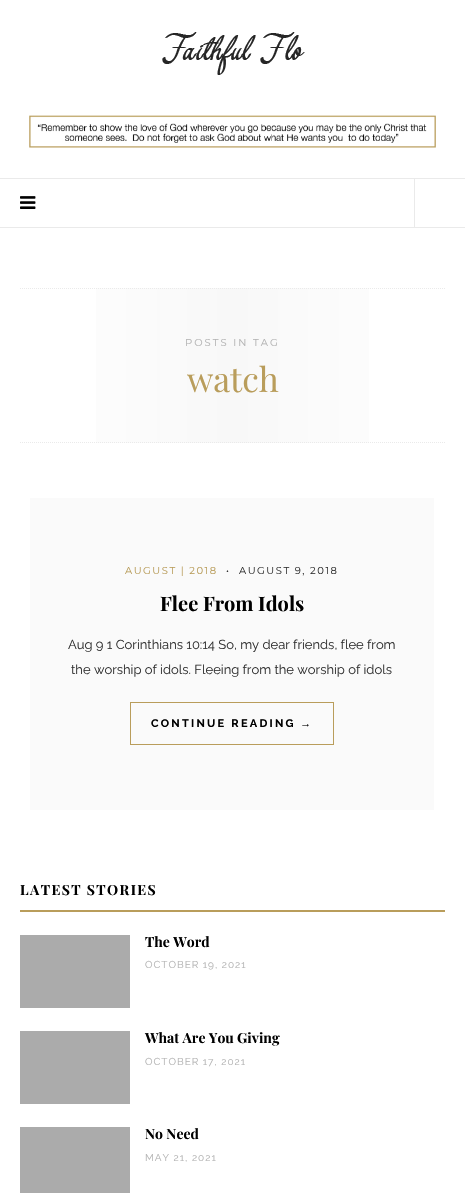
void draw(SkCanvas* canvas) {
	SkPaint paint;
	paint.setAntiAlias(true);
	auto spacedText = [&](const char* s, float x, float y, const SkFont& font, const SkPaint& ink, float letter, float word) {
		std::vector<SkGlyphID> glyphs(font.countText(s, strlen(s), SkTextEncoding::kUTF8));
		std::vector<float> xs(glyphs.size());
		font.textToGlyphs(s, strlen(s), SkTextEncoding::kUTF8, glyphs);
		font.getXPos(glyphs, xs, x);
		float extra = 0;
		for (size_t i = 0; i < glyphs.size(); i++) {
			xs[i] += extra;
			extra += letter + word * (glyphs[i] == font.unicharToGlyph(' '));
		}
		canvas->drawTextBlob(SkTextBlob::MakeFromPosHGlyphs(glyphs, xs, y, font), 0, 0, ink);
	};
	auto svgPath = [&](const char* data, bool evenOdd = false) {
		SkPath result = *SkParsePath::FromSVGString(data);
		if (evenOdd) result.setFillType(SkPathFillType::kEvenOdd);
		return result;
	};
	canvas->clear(0xffffffff);
	canvas->drawImageRect(SkImages::DeferredFromEncodedData(SkData::MakeFromFileName("img1.png")), SkRect::MakeXYWH(162, 32, 143, 43), SkSamplingOptions());
	canvas->drawImageRect(SkImages::DeferredFromEncodedData(SkData::MakeFromFileName("img2.png")), SkRect::MakeXYWH(29, 115, 407, 33), SkSamplingOptions());
	paint.setColor(0xffeaeaea);
	canvas->drawRect(SkRect::MakeXYWH(0, 178, 465, 1), paint);
	canvas->drawRect(SkRect::MakeXYWH(0, 227, 465, 1), paint);
	canvas->drawImageRect(SkImages::DeferredFromEncodedData(SkData::MakeFromFileName("img3.png")), SkRect::MakeXYWH(20, 196, 16, 13), SkSamplingOptions());
	canvas->drawRect(SkRect::MakeXYWH(414, 179, 1, 48), paint);
	{
		const SkColor colors[] = {0xffffffff, 0xfff8f8f8, 0xffffffff};
		const float stops[] = {0, 0.5, 1};
		const SkPoint ends[] = {{20, 366}, {445, 366}};
		paint.setShader(SkGradientShader::MakeLinear(ends, colors, stops, 3, SkTileMode::kClamp));
		paint.setAlpha(255);
	}
	canvas->drawRect(SkRect::MakeXYWH(96, 288, 273, 155), paint);
	paint.setStroke(true);
	paint.setStrokeWidth(1);
	paint.setShader(nullptr);
	paint.setColor(0xffeaeaea);
	paint.setPathEffect(SkDashPathEffect::Make({{1, 1}}, 0));
	canvas->drawPath(svgPath("M20 288.5H445"), paint);
	paint.setPathEffect(nullptr);
	paint.setPathEffect(SkDashPathEffect::Make({{1, 1}}, 0));
	canvas->drawPath(svgPath("M20 442.5H445"), paint);
	paint.setPathEffect(nullptr);
	SkFont f1(fontMgr->matchFamilyStyle("Montserrat", SkFontStyle::Normal()), 10);
	f1.setSubpixel(true);
	paint.setStroke(false);
	paint.setColor(0xffb3b3b3);
	spacedText("POSTS IN TAG", 185, 346, f1, paint, 2, 0);
	SkFont f2(fontMgr->matchFamilyStyle("Playfair Display", SkFontStyle::Normal()), 34);
	f2.setSubpixel(true);
	paint.setColor(0xffb99d5b);
	canvas->drawString("watch", 187, 392, f2, paint);
	paint.setColor(0xfffafafa);
	canvas->drawRect(SkRect::MakeXYWH(30, 498, 404, 312), paint);
	paint.setColor(0xffb99d5b);
	spacedText("AUGUST | 2018", 125, 574, f1, paint, 1.5, 0);
	paint.setColor(0xff333333);
	spacedText("•", 226, 574, f1, paint, 1.5, 0);
	spacedText("AUGUST 9, 2018", 239, 574, f1, paint, 1.5, 0);
	SkFont f3(fontMgr->matchFamilyStyle("Playfair Display", SkFontStyle::Bold()), 20);
	f3.setSubpixel(true);
	paint.setColor(0xff000000);
	canvas->drawString("Flee From Idols", 160, 611, f3, paint);
	SkFont f4(fontMgr->matchFamilyStyle("Raleway", SkFontStyle::Normal()), 13);
	f4.setSubpixel(true);
	paint.setColor(0xff333333);
	canvas->drawString("Aug 9 1 Corinthians 10:14 So, my dear friends, flee from", 68, 649, f4, paint);
	canvas->drawString("the worship of idols. Fleeing from the worship of idols", 71, 674, f4, paint);
	paint.setStroke(true);
	paint.setColor(0xffb99d5b);
	canvas->drawRect(SkRect::MakeXYWH(130.5, 702.5, 203, 42), paint);
	SkFont f5(fontMgr->matchFamilyStyle("Raleway", SkFontStyle::Bold()), 11);
	f5.setSubpixel(true);
	paint.setStroke(false);
	paint.setColor(0xff000000);
	spacedText("CONTINUE READING", 151, 727, f5, paint, 2.25, 0);
	SkFont f6(fontMgr->matchFamilyStyle("Liberation Serif", SkFontStyle::Bold()), 11);
	f6.setSubpixel(true);
	spacedText("→", 300, 727, f6, paint, 2.25, 0);
	paint.setColor(0xffb99d5b);
	canvas->drawRect(SkRect::MakeXYWH(20, 910, 425, 2), paint);
	SkFont f7(fontMgr->matchFamilyStyle("Playfair Display", SkFontStyle::Bold()), 14);
	f7.setSubpixel(true);
	paint.setColor(0xff000000);
	spacedText("LATEST STORIES", 20, 895, f7, paint, 1.4, 0);
	paint.setColor(0xffababab);
	canvas->drawRect(SkRect::MakeXYWH(20, 935, 110, 73), paint);
	paint.setColor(0xff000000);
	canvas->drawString("The Word", 145, 947, f7, paint);
	SkFont f8(fontMgr->matchFamilyStyle("Raleway", SkFontStyle::Normal()), 10);
	f8.setSubpixel(true);
	paint.setColor(0xffb3b3b3);
	spacedText("OCTOBER 19, 2021", 145, 968, f8, paint, 1, 0);
	paint.setColor(0xffababab);
	canvas->drawRect(SkRect::MakeXYWH(20, 1031, 110, 73), paint);
	paint.setColor(0xff000000);
	canvas->drawString("What Are You Giving", 145, 1043, f7, paint);
	paint.setColor(0xffb3b3b3);
	spacedText("OCTOBER 17, 2021", 145, 1065, f8, paint, 1, 0);
	paint.setColor(0xffababab);
	canvas->drawRect(SkRect::MakeXYWH(20, 1127, 110, 66), paint);
	paint.setColor(0xff000000);
	canvas->drawString("No Need", 145, 1139, f7, paint);
	paint.setColor(0xffb3b3b3);
	spacedText("MAY 21, 2021", 145, 1161, f8, paint, 1, 0);
}
